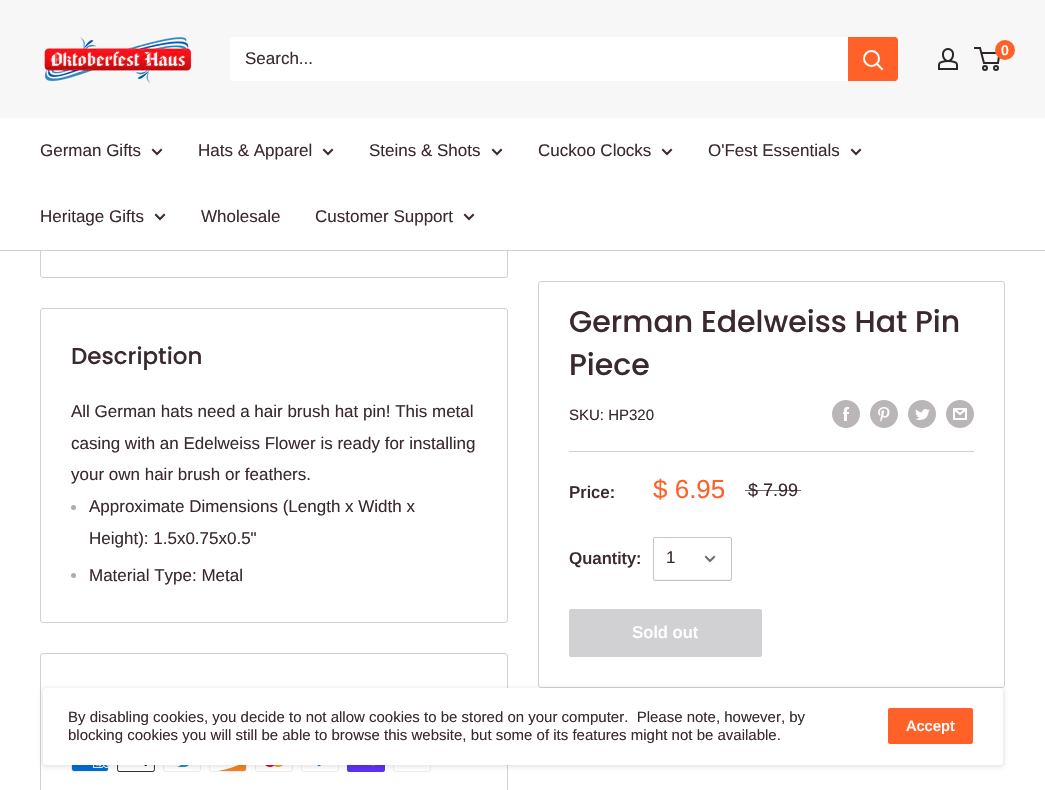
void draw(SkCanvas* canvas) {
	SkPaint paint;
	paint.setAntiAlias(true);
	auto svgPath = [&](const char* data, bool evenOdd = false) {
		SkPath result = *SkParsePath::FromSVGString(data);
		if (evenOdd) result.setFillType(SkPathFillType::kEvenOdd);
		return result;
	};
	canvas->clear(0xffffffff);
	paint.setStroke(true);
	paint.setStrokeWidth(1);
	paint.setColor(0xffd1d1d4);
	canvas->drawRoundRect(SkRect::MakeXYWH(40.5, -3.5, 467, 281), 2.5, 2.5, paint);
	paint.setStroke(false);
	paint.setColor(0xfff7f7f7);
	canvas->drawRect(SkRect::MakeXYWH(0, 0, 1045, 118), paint);
	canvas->drawImageRect(SkImages::DeferredFromEncodedData(SkData::MakeFromFileName("img1.png")), SkRect::MakeXYWH(44, 37, 148, 47), SkSamplingOptions());
	paint.setColor(0xffffffff);
	canvas->drawRoundRect(SkRect::MakeXYWH(230, 37, 668, 44), 3, 3, paint);
	SkFont f1(fontMgr->matchFamilyStyle("Arimo", SkFontStyle::Normal()), 17);
	f1.setSubpixel(true);
	paint.setColor(0xff3a2a2f);
	canvas->drawString("Search...", 245, 64, f1, paint);
	paint.setColor(0xffff6128);
	canvas->drawPath(svgPath("M848 37H895C896.5 37 898 38.5 898 40V78C898 79.5 896.5 81 895 81H848Z"), paint);
	paint.setStroke(true);
	paint.setStrokeWidth(2);
	paint.setStrokeCap(SkPaint::kSquare_Cap);
	paint.setColor(0xffffffff);
	canvas->drawPath(svgPath("M882 69L877 64"), paint);
	paint.setStrokeCap(SkPaint::kButt_Cap);
	canvas->drawCircle(871.5, 58.5, 7.5, paint);
	canvas->drawImageRect(SkImages::DeferredFromEncodedData(SkData::MakeFromFileName("img2.png")), SkRect::MakeXYWH(938, 48, 20, 22), SkSamplingOptions());
	paint.setColor(0xff2b2727);
	canvas->drawCircle(985, 68, 2, paint);
	canvas->drawCircle(996, 68, 2, paint);
	canvas->drawPath(svgPath("M981.5 53H999.5L998 63H984L980 48H974"), paint);
	paint.setStroke(false);
	paint.setColor(0xffff6128);
	canvas->drawCircle(1005, 50, 10, paint);
	SkFont f2(fontMgr->matchFamilyStyle("Arimo", SkFontStyle(600, SkFontStyle::kNormal_Width, SkFontStyle::kUpright_Slant)), 14);
	f2.setSubpixel(true);
	paint.setColor(0xffffffff);
	canvas->drawString("0", 1001, 55, f2, paint);
	canvas->drawRect(SkRect::MakeXYWH(40, 118, 468, 132), paint);
	paint.setColor(0xffd1d1d4);
	canvas->drawRect(SkRect::MakeXYWH(0, 250, 1045, 1), paint);
	paint.setColor(0xff3a2a2f);
	canvas->drawString("German Gifts", 40, 156, f1, paint);
	paint.setStroke(true);
	paint.setStrokeCap(SkPaint::kSquare_Cap);
	canvas->drawPath(svgPath("M161 150L157 154L153 150"), paint);
	paint.setStroke(false);
	canvas->drawString("Hats & Apparel", 198, 156, f1, paint);
	paint.setStroke(true);
	canvas->drawPath(svgPath("M332 150L328 154L324 150"), paint);
	paint.setStroke(false);
	canvas->drawString("Steins & Shots", 369, 156, f1, paint);
	paint.setStroke(true);
	canvas->drawPath(svgPath("M501 150L497 154L493 150"), paint);
	paint.setStroke(false);
	canvas->drawString("Cuckoo Clocks", 538, 156, f1, paint);
	paint.setStroke(true);
	canvas->drawPath(svgPath("M671 150L667 154L663 150"), paint);
	paint.setStroke(false);
	canvas->drawString("O'Fest Essentials", 708, 156, f1, paint);
	paint.setStroke(true);
	canvas->drawPath(svgPath("M860 150L856 154L852 150"), paint);
	paint.setStroke(false);
	canvas->drawString("Heritage Gifts", 40, 222, f1, paint);
	paint.setStroke(true);
	canvas->drawPath(svgPath("M164 215L160 219L156 215"), paint);
	paint.setStroke(false);
	canvas->drawString("Wholesale", 201, 222, f1, paint);
	canvas->drawString("Customer Support", 315, 222, f1, paint);
	paint.setStroke(true);
	canvas->drawPath(svgPath("M473 215L469 219L465 215"), paint);
	paint.setStrokeWidth(1);
	paint.setStrokeCap(SkPaint::kButt_Cap);
	paint.setColor(0xffd1d1d4);
	canvas->drawRoundRect(SkRect::MakeXYWH(40.5, 308.5, 467, 314), 2.5, 2.5, paint);
	SkFont f3(fontMgr->matchFamilyStyle("Poppins", SkFontStyle(500, SkFontStyle::kNormal_Width, SkFontStyle::kUpright_Slant)), 23);
	f3.setSubpixel(true);
	paint.setStroke(false);
	paint.setColor(0xff3a2a2f);
	canvas->drawString("Description", 71, 364, f3, paint);
	canvas->drawString("All German hats need a hair brush hat pin! This metal", 71, 417, f1, paint);
	canvas->drawString("casing with an Edelweiss Flower is ready for installing", 71, 449, f1, paint);
	canvas->drawString("your own hair brush or feathers.", 71, 480, f1, paint);
	paint.setColor(0xffb0aaac);
	canvas->drawCircle(73.5, 507.5, 2.5, paint);
	paint.setColor(0xff3a2a2f);
	canvas->drawString("Approximate Dimensions (Length x Width x", 89, 512, f1, paint);
	canvas->drawString("Height): 1.5x0.75x0.5\"", 89, 544, f1, paint);
	paint.setColor(0xffb0aaac);
	canvas->drawCircle(73.5, 575.5, 2.5, paint);
	paint.setColor(0xff3a2a2f);
	canvas->drawString("Material Type: Metal", 89, 581, f1, paint);
	paint.setStroke(true);
	paint.setColor(0xffd1d1d4);
	canvas->drawRoundRect(SkRect::MakeXYWH(538.5, 281.5, 466, 406), 2.5, 2.5, paint);
	SkFont f4(fontMgr->matchFamilyStyle("Poppins", SkFontStyle(500, SkFontStyle::kNormal_Width, SkFontStyle::kUpright_Slant)), 30);
	f4.setSubpixel(true);
	paint.setStroke(false);
	paint.setColor(0xff3a2a2f);
	canvas->drawString("German Edelweiss Hat Pin", 569, 332, f4, paint);
	canvas->drawString("Piece", 569, 375, f4, paint);
	SkFont f5(fontMgr->matchFamilyStyle("Arimo", SkFontStyle::Normal()), 15);
	f5.setSubpixel(true);
	canvas->drawString("SKU: HP320", 569, 420, f5, paint);
	canvas->drawImageRect(SkImages::DeferredFromEncodedData(SkData::MakeFromFileName("img3.png")), SkRect::MakeXYWH(832, 400, 28, 28), SkSamplingOptions());
	canvas->drawImageRect(SkImages::DeferredFromEncodedData(SkData::MakeFromFileName("img4.png")), SkRect::MakeXYWH(870, 400, 28, 28), SkSamplingOptions());
	canvas->drawImageRect(SkImages::DeferredFromEncodedData(SkData::MakeFromFileName("img5.png")), SkRect::MakeXYWH(908, 400, 28, 28), SkSamplingOptions());
	canvas->drawImageRect(SkImages::DeferredFromEncodedData(SkData::MakeFromFileName("img6.png")), SkRect::MakeXYWH(946, 400, 28, 28), SkSamplingOptions());
	paint.setColor(0xffd1d1d4);
	canvas->drawRect(SkRect::MakeXYWH(569, 451, 405, 1), paint);
	SkFont f6(fontMgr->matchFamilyStyle("Arimo", SkFontStyle(600, SkFontStyle::kNormal_Width, SkFontStyle::kUpright_Slant)), 17);
	f6.setSubpixel(true);
	paint.setColor(0xff3a2a2f);
	canvas->drawString("Price:", 569, 498, f6, paint);
	SkFont f7(fontMgr->matchFamilyStyle("Arimo", SkFontStyle::Normal()), 26);
	f7.setSubpixel(true);
	paint.setColor(0xffff6128);
	canvas->drawString("$ 6.95", 653, 498, f7, paint);
	SkFont f8(fontMgr->matchFamilyStyle("Arimo", SkFontStyle::Normal()), 18);
	f8.setSubpixel(true);
	paint.setColor(0xff3a2a2f);
	canvas->drawString("$ 7.99", 748, 496, f8, paint);
	paint.setColor(0xb33a2a2f);
	canvas->drawRect(SkRect::MakeXYWH(745, 490, 56, 1), paint);
	paint.setColor(0xff3a2a2f);
	canvas->drawString("Quantity:", 569, 564, f6, paint);
	paint.setColor(0xfff1f1f2);
	canvas->drawPath(svgPath("M654 578C654 579 654 580 655 580H730L731 578L730 579H678C678 579 655 580 654 578Z"), paint);
	paint.setStroke(true);
	paint.setColor(0xffc4c4c8);
	canvas->drawRoundRect(SkRect::MakeXYWH(653.5, 537.5, 78, 43), 1.5, 1.5, paint);
	paint.setStroke(false);
	paint.setColor(0xff3a2a2f);
	canvas->drawString("1", 666, 563, f1, paint);
	paint.setStroke(true);
	paint.setStrokeWidth(2);
	paint.setStrokeCap(SkPaint::kSquare_Cap);
	paint.setColor(0xff756a6d);
	canvas->drawPath(svgPath("M714 557L710 561L706 557"), paint);
	paint.setStroke(false);
	paint.setColor(0xffd1d1d4);
	canvas->drawRoundRect(SkRect::MakeXYWH(569.5, 609.5, 192, 47), 1.5, 1.5, paint);
	paint.setStroke(true);
	paint.setStrokeWidth(1);
	paint.setStrokeCap(SkPaint::kButt_Cap);
	canvas->drawRoundRect(SkRect::MakeXYWH(569.5, 609.5, 192, 47), 1.5, 1.5, paint);
	paint.setStroke(false);
	paint.setColor(0xffffffff);
	canvas->drawString("Sold out", 632, 638, f6, paint);
	paint.setStroke(true);
	paint.setColor(0xffd1d1d4);
	canvas->drawRoundRect(SkRect::MakeXYWH(40.5, 653.5, 467, 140), 2.5, 2.5, paint);
	canvas->drawImageRect(SkImages::DeferredFromEncodedData(SkData::MakeFromFileName("img7.png")), SkRect::MakeXYWH(71, 765, 38, 7), SkSamplingOptions());
	canvas->drawImageRect(SkImages::DeferredFromEncodedData(SkData::MakeFromFileName("img8.png")), SkRect::MakeXYWH(117, 765, 38, 7), SkSamplingOptions());
	canvas->drawImageRect(SkImages::DeferredFromEncodedData(SkData::MakeFromFileName("img9.png")), SkRect::MakeXYWH(163, 765, 38, 7), SkSamplingOptions());
	canvas->drawImageRect(SkImages::DeferredFromEncodedData(SkData::MakeFromFileName("img10.png")), SkRect::MakeXYWH(209, 765, 38, 7), SkSamplingOptions());
	canvas->drawImageRect(SkImages::DeferredFromEncodedData(SkData::MakeFromFileName("img11.png")), SkRect::MakeXYWH(255, 765, 38, 7), SkSamplingOptions());
	canvas->drawImageRect(SkImages::DeferredFromEncodedData(SkData::MakeFromFileName("img12.png")), SkRect::MakeXYWH(301, 765, 38, 7), SkSamplingOptions());
	canvas->drawImageRect(SkImages::DeferredFromEncodedData(SkData::MakeFromFileName("img13.png")), SkRect::MakeXYWH(347, 765, 38, 7), SkSamplingOptions());
	canvas->drawImageRect(SkImages::DeferredFromEncodedData(SkData::MakeFromFileName("img14.png")), SkRect::MakeXYWH(393, 765, 38, 7), SkSamplingOptions());
	paint.setStroke(false);
	paint.setColor(0x1a000000);
	paint.setMaskFilter(SkMaskFilter::MakeBlur(kNormal_SkBlurStyle, 2));
	canvas->drawRoundRect(SkRect::MakeXYWH(42, 688, 962, 79), 4, 4, paint);
	paint.setMaskFilter(nullptr);
	paint.setColor(0xffffffff);
	canvas->drawRoundRect(SkRect::MakeXYWH(43, 688, 960, 77), 3, 3, paint);
	paint.setColor(0xff3a2a2f);
	canvas->drawString("By disabling cookies, you decide to not allow cookies to be stored on your computer.  Please note, however, by", 68, 722, f5, paint);
	canvas->drawString("blocking cookies you will still be able to browse this website, but some of its features might not be available.", 68, 740, f5, paint);
	paint.setColor(0xffff6128);
	canvas->drawRoundRect(SkRect::MakeXYWH(888, 708, 85, 36), 2, 2, paint);
	SkFont f9(fontMgr->matchFamilyStyle("Arimo", SkFontStyle(600, SkFontStyle::kNormal_Width, SkFontStyle::kUpright_Slant)), 15);
	f9.setSubpixel(true);
	paint.setColor(0xffffffff);
	canvas->drawString("Accept", 906, 731, f9, paint);
}
